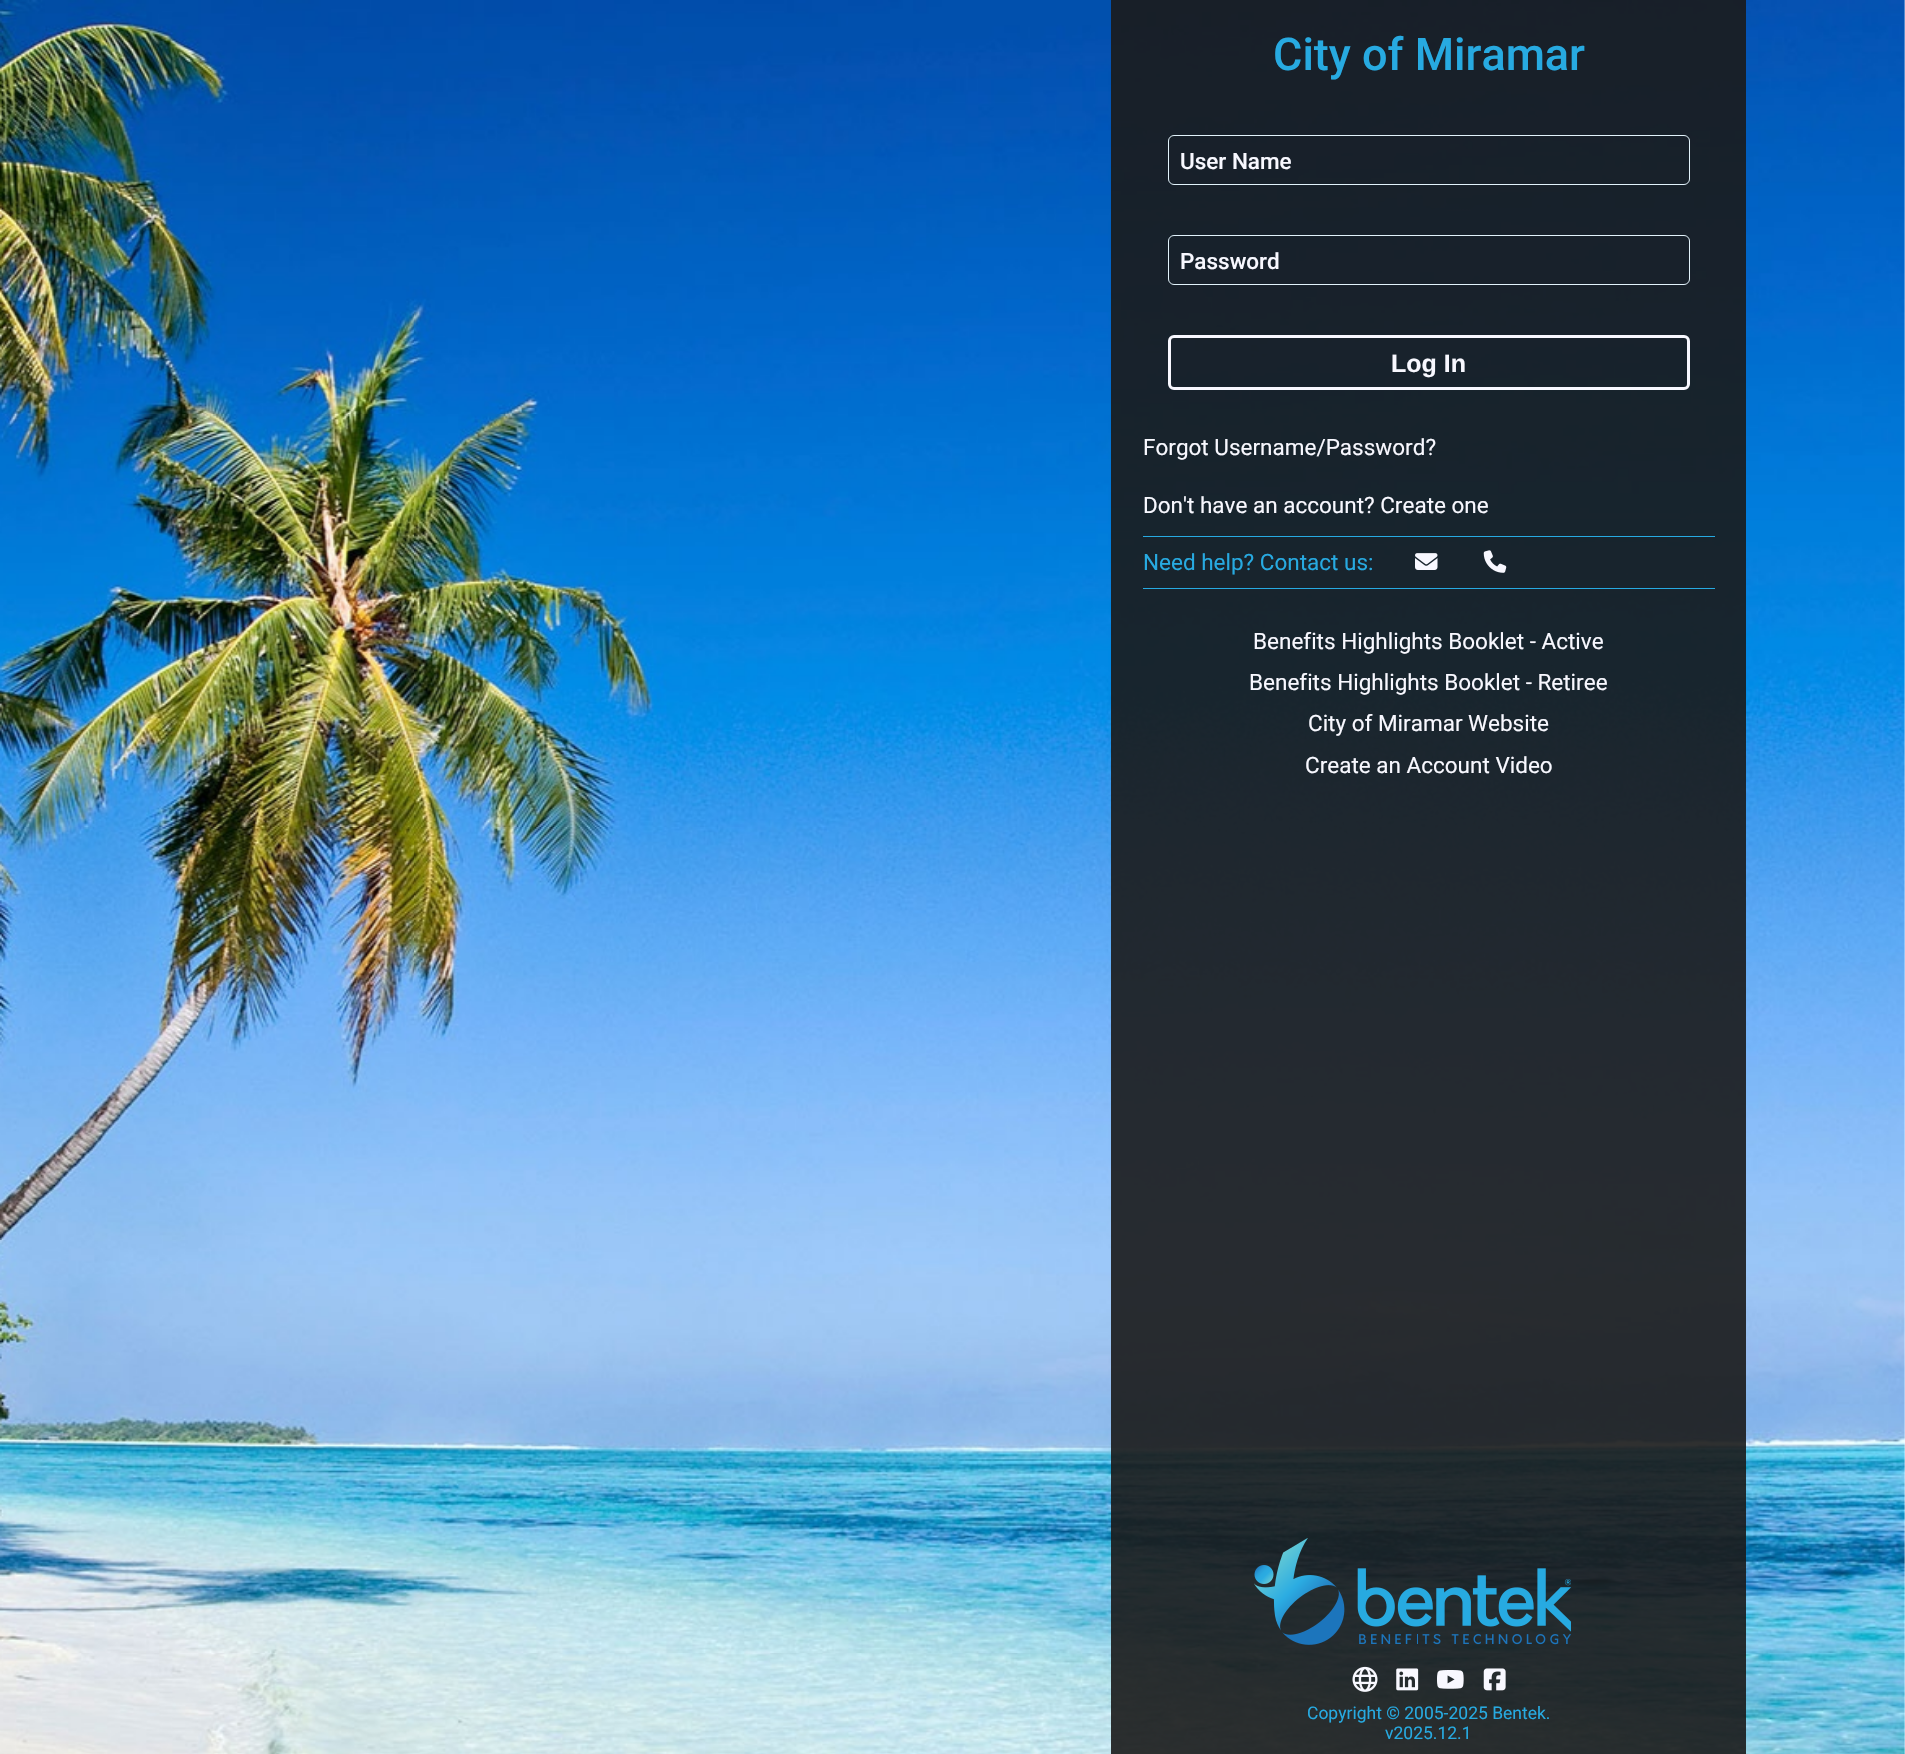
void draw(SkCanvas* canvas) {
	SkPaint paint;
	paint.setAntiAlias(true);
	canvas->clear(0xfff8f8ff);
	canvas->drawImageRect(SkImages::DeferredFromEncodedData(SkData::MakeFromFileName("img1.png")), SkRect::MakeXYWH(0, 0, 1905, 1754), SkSamplingOptions());
	paint.setColor(0xe61a1a1a);
	canvas->drawRect(SkRect::MakeXYWH(1111, 0, 635, 1754), paint);
	SkFont f1(fontMgr->matchFamilyStyle("Roboto", SkFontStyle(500, SkFontStyle::kNormal_Width, SkFontStyle::kUpright_Slant)), 45);
	f1.setSubpixel(true);
	paint.setColor(0xff27aae1);
	canvas->drawString("City of Miramar", 1273, 70, f1, paint);
	paint.setStroke(true);
	paint.setStrokeWidth(1);
	paint.setColor(0xffe2f3fb);
	canvas->drawRoundRect(SkRect::MakeXYWH(1168.5, 135.5, 521, 49), 5.5, 5.5, paint);
	SkFont f2(fontMgr->matchFamilyStyle("Roboto", SkFontStyle(500, SkFontStyle::kNormal_Width, SkFontStyle::kUpright_Slant)), 22.5);
	f2.setSubpixel(true);
	paint.setStroke(false);
	paint.setColor(0xfff8f8ff);
	canvas->drawString("User Name", 1180, 169, f2, paint);
	paint.setStroke(true);
	paint.setColor(0xffe2f3fb);
	canvas->drawRoundRect(SkRect::MakeXYWH(1168.5, 235.5, 521, 49), 5.5, 5.5, paint);
	paint.setStroke(false);
	paint.setColor(0xfff8f8ff);
	canvas->drawString("Password", 1180, 269, f2, paint);
	paint.setStroke(true);
	paint.setStrokeWidth(3);
	canvas->drawRoundRect(SkRect::MakeXYWH(1169.5, 336.5, 519, 52), 4.5, 4.5, paint);
	SkFont f3(fontMgr->matchFamilyStyle("Liberation Sans", SkFontStyle::Bold()), 25);
	f3.setSubpixel(true);
	paint.setStroke(false);
	canvas->drawString("Log In", 1391, 372, f3, paint);
	SkFont f4(fontMgr->matchFamilyStyle("Roboto", SkFontStyle::Normal()), 22.5);
	f4.setSubpixel(true);
	canvas->drawString("Forgot Username/Password?", 1143, 455, f4, paint);
	canvas->drawString("Don't have an account? Create one", 1143, 513, f4, paint);
	paint.setColor(0xff27aae1);
	canvas->drawRect(SkRect::MakeXYWH(1143, 536, 572, 1), paint);
	canvas->drawRect(SkRect::MakeXYWH(1143, 588, 572, 1), paint);
	canvas->drawString("Need help? Contact us:", 1143, 570, f4, paint);
	canvas->drawImageRect(SkImages::DeferredFromEncodedData(SkData::MakeFromFileName("img2.png")), SkRect::MakeXYWH(1415, 553, 23, 17), SkSamplingOptions());
	canvas->drawImageRect(SkImages::DeferredFromEncodedData(SkData::MakeFromFileName("img3.png")), SkRect::MakeXYWH(1483, 550, 24, 23), SkSamplingOptions());
	paint.setColor(0xfff8f8ff);
	canvas->drawString("Benefits Highlights Booklet - Active", 1253, 649, f4, paint);
	canvas->drawString("Benefits Highlights Booklet - Retiree", 1249, 690, f4, paint);
	canvas->drawString("City of Miramar Website", 1308, 731, f4, paint);
	canvas->drawString("Create an Account Video", 1305, 773, f4, paint);
	canvas->drawImageRect(SkImages::DeferredFromEncodedData(SkData::MakeFromFileName("img4.png")), SkRect::MakeXYWH(1254, 1538, 317, 107), SkSamplingOptions());
	canvas->drawImageRect(SkImages::DeferredFromEncodedData(SkData::MakeFromFileName("img5.png")), SkRect::MakeXYWH(1352, 1666, 26, 26), SkSamplingOptions());
	canvas->drawImageRect(SkImages::DeferredFromEncodedData(SkData::MakeFromFileName("img6.png")), SkRect::MakeXYWH(1396, 1668, 23, 23), SkSamplingOptions());
	canvas->drawImageRect(SkImages::DeferredFromEncodedData(SkData::MakeFromFileName("img7.png")), SkRect::MakeXYWH(1437, 1670, 27, 19), SkSamplingOptions());
	canvas->drawImageRect(SkImages::DeferredFromEncodedData(SkData::MakeFromFileName("img8.png")), SkRect::MakeXYWH(1483, 1668, 23, 23), SkSamplingOptions());
	SkFont f5(fontMgr->matchFamilyStyle("Roboto", SkFontStyle::Normal()), 17.5);
	f5.setSubpixel(true);
	paint.setColor(0xff27aae1);
	canvas->drawString("Copyright © 2005-2025 Bentek.", 1307, 1719, f5, paint);
	canvas->drawString("v2025.12.1", 1385, 1739, f5, paint);
}
